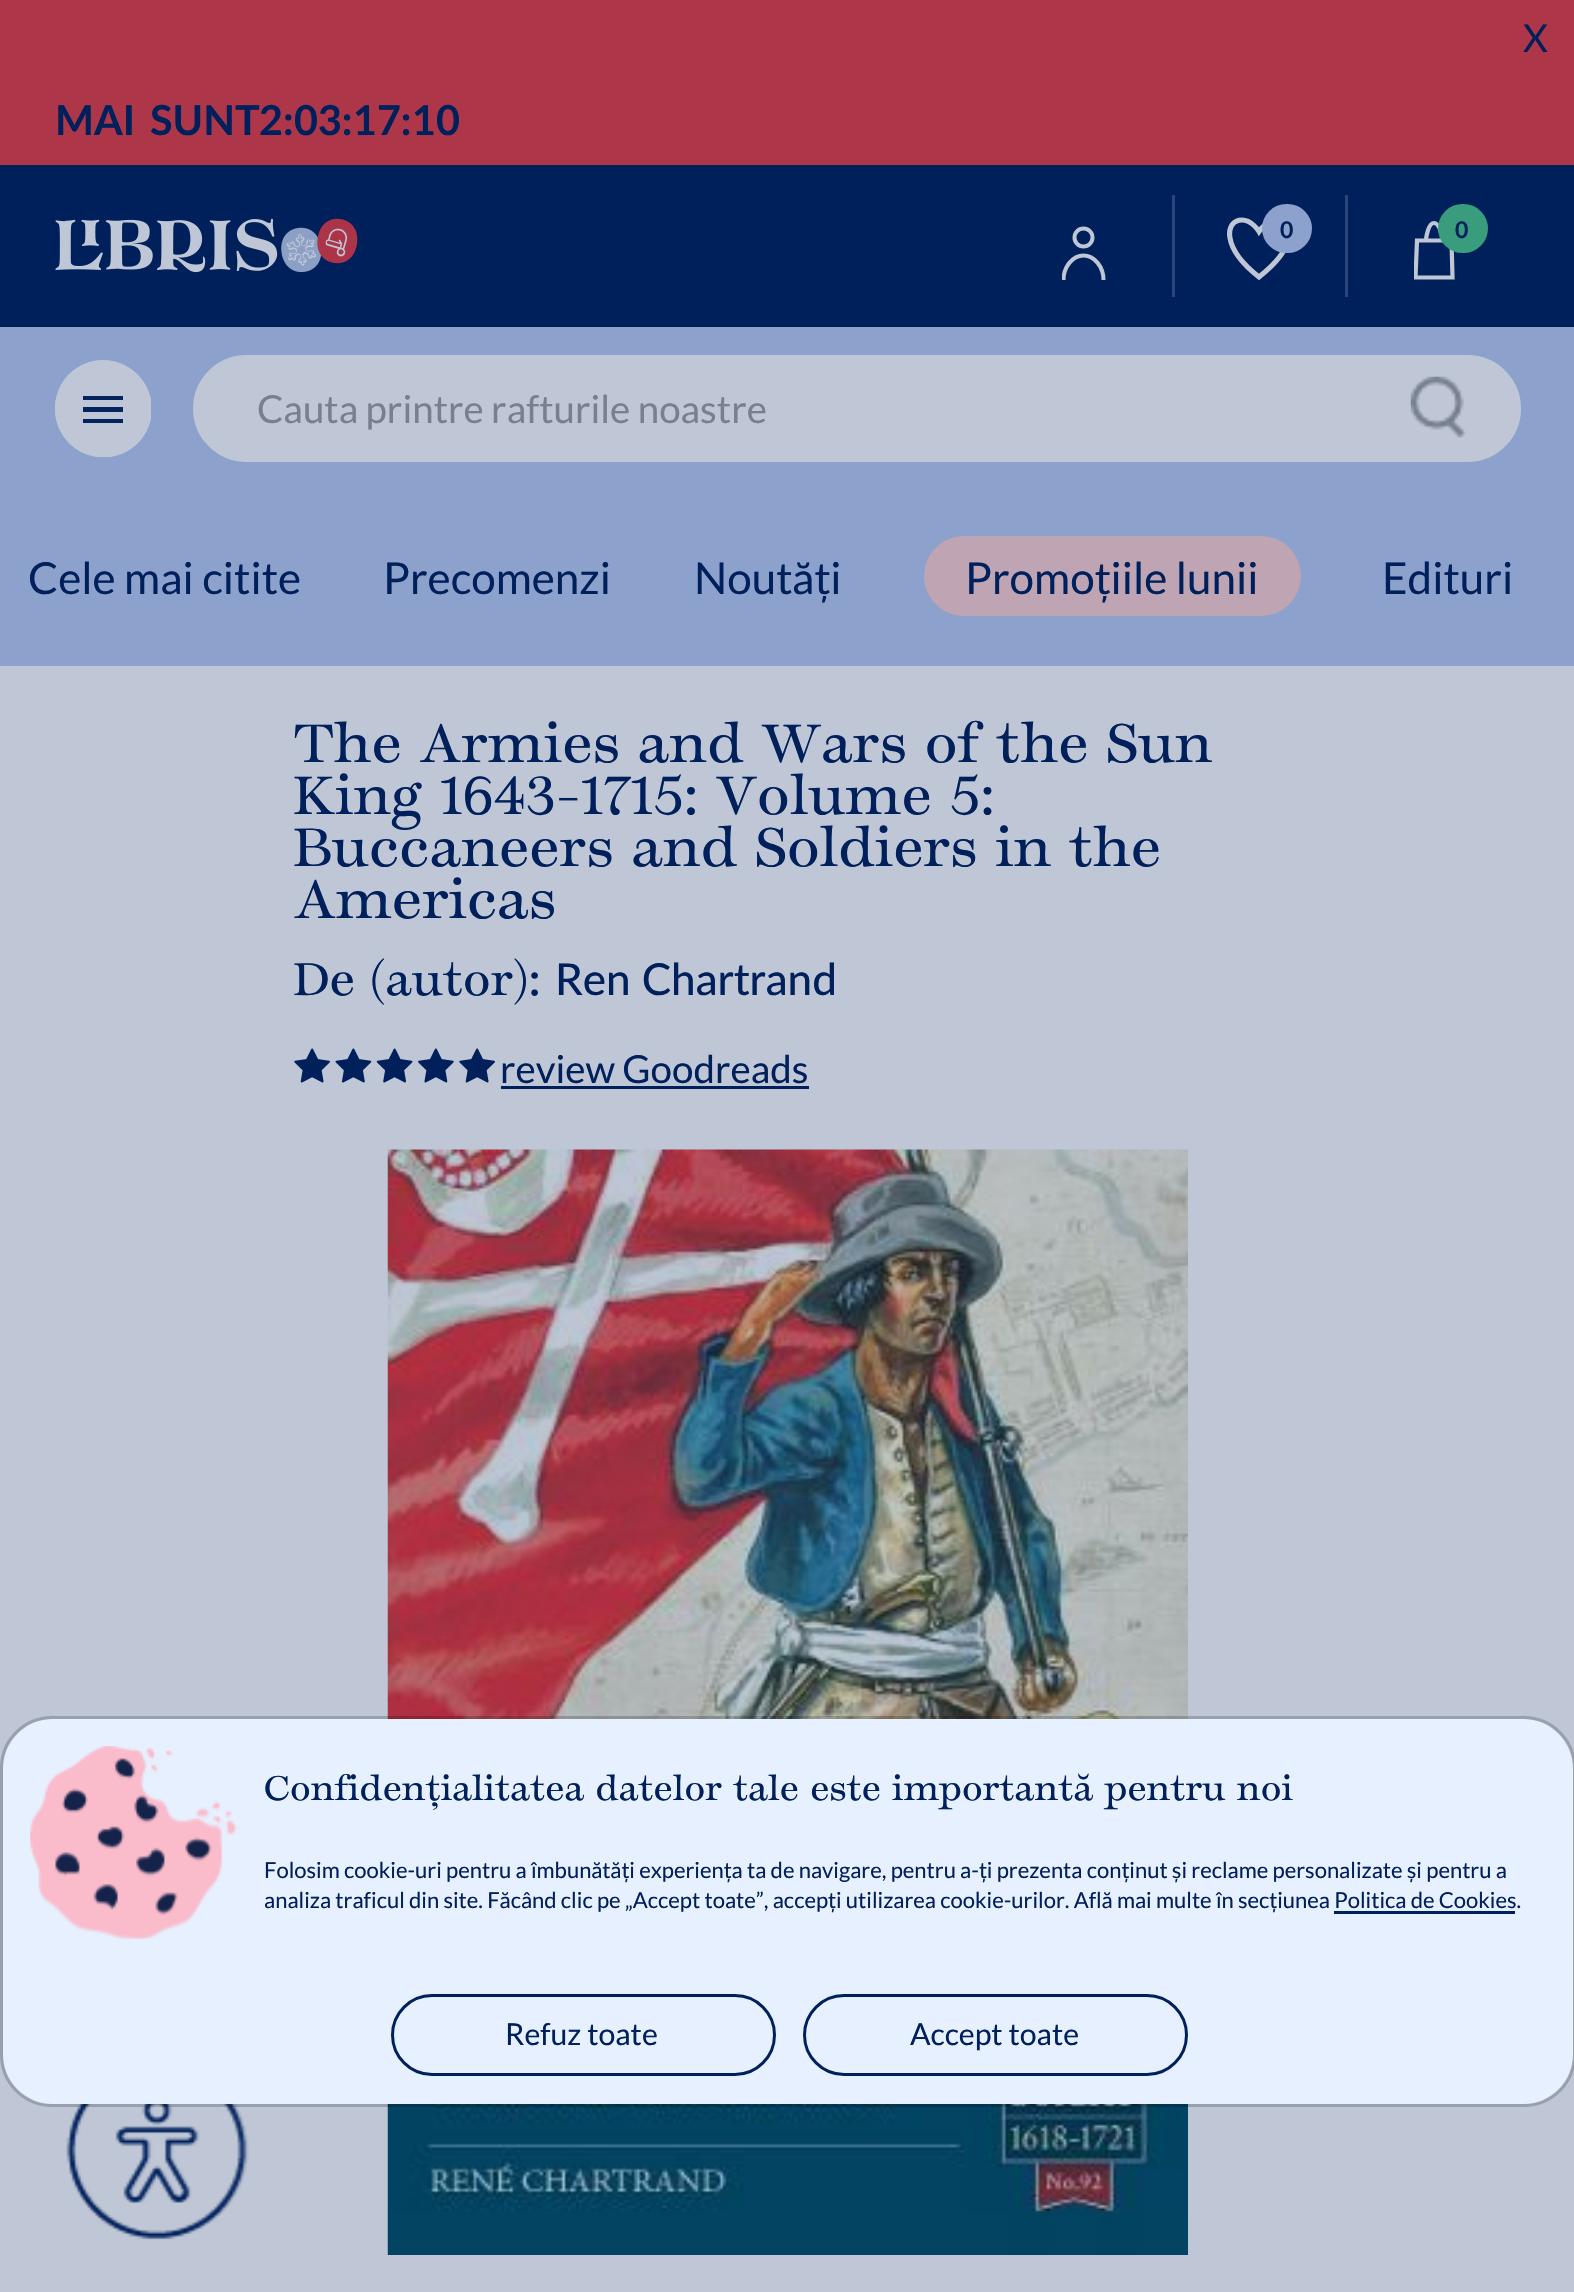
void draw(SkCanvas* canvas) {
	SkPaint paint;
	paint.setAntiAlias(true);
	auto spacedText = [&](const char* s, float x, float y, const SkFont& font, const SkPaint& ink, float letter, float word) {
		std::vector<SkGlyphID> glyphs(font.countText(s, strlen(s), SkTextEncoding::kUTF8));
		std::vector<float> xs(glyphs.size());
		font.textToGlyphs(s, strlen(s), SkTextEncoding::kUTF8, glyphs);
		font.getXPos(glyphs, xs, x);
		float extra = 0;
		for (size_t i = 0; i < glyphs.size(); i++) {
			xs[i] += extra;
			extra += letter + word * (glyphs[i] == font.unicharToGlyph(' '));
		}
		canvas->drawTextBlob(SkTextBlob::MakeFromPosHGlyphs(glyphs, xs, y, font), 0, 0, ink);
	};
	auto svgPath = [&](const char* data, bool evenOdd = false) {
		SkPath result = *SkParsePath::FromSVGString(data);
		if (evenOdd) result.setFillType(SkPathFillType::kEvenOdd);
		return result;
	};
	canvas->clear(0xffbfc7d6);
	paint.setColor(0xffad3648);
	canvas->drawRect(SkRect::MakeXYWH(0, 0, 1574, 165), paint);
	SkFont f1(fontMgr->matchFamilyStyle("Lato", SkFontStyle::Normal()), 38.5);
	f1.setSubpixel(true);
	paint.setColor(0xff00205b);
	canvas->drawString("X", 1523, 52, f1, paint);
	SkFont f2(fontMgr->matchFamilyStyle("Lato", SkFontStyle::Bold()), 41.25);
	f2.setSubpixel(true);
	spacedText("MAI SUNT", 55, 135, f2, paint, 0, 5);
	canvas->drawString("2:", 259, 135, f2, paint);
	canvas->drawString("03:", 294, 135, f2, paint);
	canvas->drawString("17:", 353, 135, f2, paint);
	canvas->drawString("10", 412, 135, f2, paint);
	canvas->drawRect(SkRect::MakeXYWH(0, 165, 1574, 162), paint);
	canvas->drawImageRect(SkImages::DeferredFromEncodedData(SkData::MakeFromFileName("img1.png")), SkRect::MakeXYWH(55, 218, 303, 55), SkSamplingOptions());
	paint.setColor(0xff294579);
	canvas->drawRect(SkRect::MakeXYWH(1172, 195, 3, 102), paint);
	paint.setStroke(true);
	paint.setStrokeWidth(4);
	paint.setColor(0xffbfc7d6);
	canvas->drawCircle(1083.5, 237.5, 9, paint);
	canvas->save();
	canvas->clipRect(SkRect::MakeXYWH(1062, 226, 44, 55));
	canvas->drawPath(svgPath("M1063.5 280C1063.5 267 1072.5 255.5 1083.5 255.5C1094.5 255.5 1103.5 267 1103.5 280"), paint);
	canvas->restore();
	paint.setStroke(false);
	paint.setColor(0xff294579);
	canvas->drawRect(SkRect::MakeXYWH(1345, 195, 3, 102), paint);
	paint.setStroke(true);
	paint.setStrokeWidth(5.1);
	paint.setColor(0xffbfc7d6);
	canvas->drawPath(svgPath("M1276.5 220C1267 220 1259 231.5 1259 231.5C1259 231.5 1252 220 1242 220C1225 220 1221 247.5 1259 277C1299 245.5 1293.5 220 1276.5 220Z"), paint);
	paint.setStroke(false);
	paint.setColor(0xff8ca2cc);
	canvas->drawRoundRect(SkRect::MakeXYWH(1262, 204, 50, 49), 24.5, 24.5, paint);
	SkFont f3(fontMgr->matchFamilyStyle("Lato", SkFontStyle::Bold()), 23);
	f3.setSubpixel(true);
	paint.setColor(0xff00205b);
	canvas->drawString("0", 1280, 238, f3, paint);
	canvas->save();
	canvas->clipRect(SkRect::MakeXYWH(1414, 220, 41, 61));
	paint.setStroke(true);
	paint.setStrokeWidth(4.2);
	paint.setColor(0xffbfc7d6);
	canvas->drawPath(svgPath("M1452.5 277.5H1415.5L1417 240.5H1451.5Z"), paint);
	canvas->restore();
	canvas->drawPath(svgPath("M1426 241C1426 236.5 1428.5 223 1434 223C1439.5 223 1442.5 236.5 1442.5 241"), paint);
	paint.setStroke(false);
	paint.setColor(0xff389c7d);
	canvas->drawRoundRect(SkRect::MakeXYWH(1438, 204, 50, 49), 24.5, 24.5, paint);
	paint.setColor(0xff00205b);
	canvas->drawString("0", 1455, 238, f3, paint);
	paint.setColor(0xff8ca2cc);
	canvas->drawRect(SkRect::MakeXYWH(0, 327, 1574, 339), paint);
	paint.setColor(0xffbfc7d6);
	canvas->drawRoundRect(SkRect::MakeXYWH(55, 360, 96, 97), 48, 48, paint);
	canvas->save();
	canvas->clipRect(SkRect::MakeXYWH(55, 360, 96, 97));
	canvas->drawCircle(103.5, 409, 48.5, paint);
	canvas->restore();
	paint.setColor(0xff05235d);
	canvas->drawRect(SkRect::MakeXYWH(83, 396, 40, 4), paint);
	canvas->drawRect(SkRect::MakeXYWH(83, 407, 40, 5), paint);
	canvas->drawRect(SkRect::MakeXYWH(83, 419, 40, 4), paint);
	paint.setColor(0xffbfc7d6);
	canvas->drawRoundRect(SkRect::MakeXYWH(194.5, 356.5, 1325, 104), 52, 52, paint);
	paint.setStroke(true);
	paint.setStrokeWidth(3);
	canvas->drawRoundRect(SkRect::MakeXYWH(194.5, 356.5, 1325, 104), 52, 52, paint);
	paint.setStroke(false);
	paint.setColor(0xff78808f);
	canvas->drawString("Cauta printre rafturile noastre", 257, 423, f1, paint);
	canvas->drawImageRect(SkImages::DeferredFromEncodedData(SkData::MakeFromFileName("img2.png")), SkRect::MakeXYWH(1410, 376, 56, 62), SkSamplingOptions());
	SkFont f4(fontMgr->matchFamilyStyle("Lato", SkFontStyle::Normal()), 44);
	f4.setSubpixel(true);
	paint.setColor(0xff00205b);
	canvas->drawString("Cele mai citite", 28, 594, f4, paint);
	canvas->drawString("Precomenzi", 383, 594, f4, paint);
	canvas->drawString("Noutăți", 694, 594, f4, paint);
	paint.setColor(0xffbfa4b3);
	canvas->drawRoundRect(SkRect::MakeXYWH(924, 536, 377, 80), 40, 40, paint);
	paint.setColor(0xff00205b);
	canvas->drawString("Promoțiile lunii", 965, 594, f4, paint);
	canvas->drawString("Edituri", 1382, 594, f4, paint);
	SkFont f5(fontMgr->matchFamilyStyle("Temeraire", SkFontStyle::Normal()), 52.25);
	f5.setSubpixel(true);
	canvas->drawString("The Armies and Wars of the Sun", 294, 762, f5, paint);
	canvas->drawString("King 1643-1715: Volume 5:", 294, 814, f5, paint);
	canvas->drawString("Buccaneers and Soldiers in the", 294, 866, f5, paint);
	canvas->drawString("Americas", 294, 918, f5, paint);
	SkFont f6(fontMgr->matchFamilyStyle("Temeraire", SkFontStyle::Normal()), 44);
	f6.setSubpixel(true);
	canvas->drawString("De (autor):", 294, 995, f6, paint);
	SkFont f7(fontMgr->matchFamilyStyle("Lato", SkFontStyle(500, SkFontStyle::kNormal_Width, SkFontStyle::kUpright_Slant)), 44);
	f7.setSubpixel(true);
	canvas->drawString("Ren Chartrand", 555, 995, f7, paint);
	canvas->drawImageRect(SkImages::DeferredFromEncodedData(SkData::MakeFromFileName("img3.png")), SkRect::MakeXYWH(294, 1048, 36, 35), SkSamplingOptions());
	canvas->drawImageRect(SkImages::DeferredFromEncodedData(SkData::MakeFromFileName("img4.png")), SkRect::MakeXYWH(335, 1048, 37, 35), SkSamplingOptions());
	canvas->drawImageRect(SkImages::DeferredFromEncodedData(SkData::MakeFromFileName("img5.png")), SkRect::MakeXYWH(376, 1048, 37, 35), SkSamplingOptions());
	canvas->drawImageRect(SkImages::DeferredFromEncodedData(SkData::MakeFromFileName("img6.png")), SkRect::MakeXYWH(418, 1048, 36, 35), SkSamplingOptions());
	canvas->drawImageRect(SkImages::DeferredFromEncodedData(SkData::MakeFromFileName("img3.png")), SkRect::MakeXYWH(459, 1048, 36, 35), SkSamplingOptions());
	canvas->drawString("review Goodreads", 500, 1083, f1, paint);
	canvas->drawRect(SkRect::MakeXYWH(501, 1086, 308, 3), paint);
	canvas->drawImageRect(SkImages::DeferredFromEncodedData(SkData::MakeFromFileName("img7.png")), SkRect::MakeXYWH(387, 1149, 801, 1106), SkSamplingOptions());
	paint.setColor(0xffe7f0fe);
	canvas->drawRoundRect(SkRect::MakeXYWH(3, 1719, 1570, 385), 50, 50, paint);
	canvas->drawImageRect(SkImages::DeferredFromEncodedData(SkData::MakeFromFileName("img9.png")), SkRect::MakeXYWH(66, 2104, 183, 136), SkSamplingOptions());
	paint.setStroke(true);
	paint.setColor(0x33000000);
	canvas->drawRoundRect(SkRect::MakeXYWH(1.5, 1717.5, 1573, 388), 50.5, 50.5, paint);
	canvas->drawImageRect(SkImages::DeferredFromEncodedData(SkData::MakeFromFileName("img8.png")), SkRect::MakeXYWH(30, 1746, 207, 193), SkSamplingOptions());
	SkFont f8(fontMgr->matchFamilyStyle("Temeraire", SkFontStyle::Normal()), 33);
	f8.setSubpixel(true);
	paint.setStroke(false);
	paint.setColor(0xff00205b);
	canvas->drawString("Confidențialitatea datelor tale este importantă pentru noi", 264, 1800, f8, paint);
	SkFont f9(fontMgr->matchFamilyStyle("Lato", SkFontStyle::Normal()), 22);
	f9.setSubpixel(true);
	canvas->drawString("Folosim cookie-uri pentru a îmbunătăți experiența ta de navigare, pentru a-ți prezenta conținut și reclame personalizate și pentru a", 264, 1878, f9, paint);
	canvas->drawString("analiza traficul din site. Făcând clic pe „Accept toate”, accepți utilizarea cookie-urilor. Află mai multe în secțiunea Politica de Cookies.", 264, 1908, f9, paint);
	canvas->drawRect(SkRect::MakeXYWH(1334, 1911, 181, 3), paint);
	paint.setStroke(true);
	canvas->drawRoundRect(SkRect::MakeXYWH(392.5, 1995.5, 382, 79), 39.5, 39.5, paint);
	SkFont f10(fontMgr->matchFamilyStyle("Lato", SkFontStyle::Normal()), 30.25);
	f10.setSubpixel(true);
	paint.setStroke(false);
	canvas->drawString("Refuz toate", 505, 2045, f10, paint);
	paint.setStroke(true);
	canvas->drawRoundRect(SkRect::MakeXYWH(804.5, 1995.5, 382, 79), 39.5, 39.5, paint);
	paint.setStroke(false);
	canvas->drawString("Accept toate", 910, 2045, f10, paint);
}
